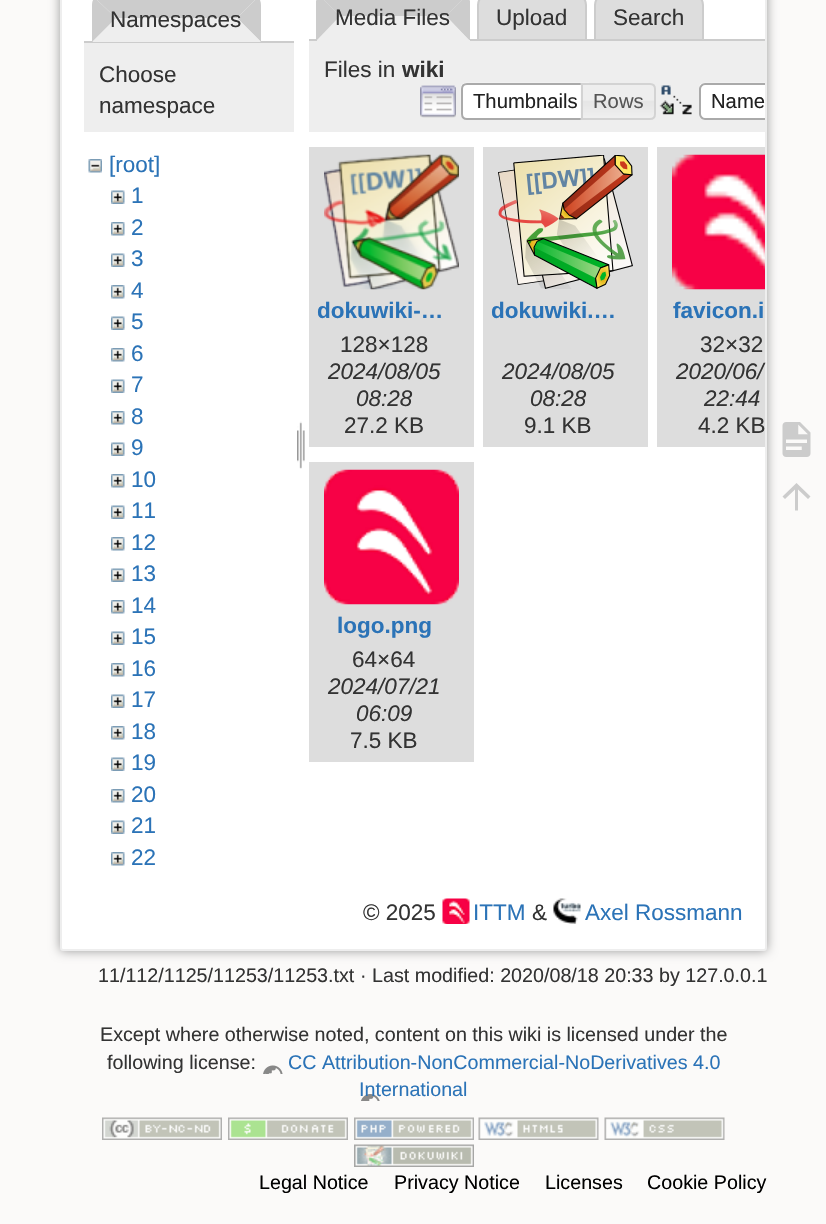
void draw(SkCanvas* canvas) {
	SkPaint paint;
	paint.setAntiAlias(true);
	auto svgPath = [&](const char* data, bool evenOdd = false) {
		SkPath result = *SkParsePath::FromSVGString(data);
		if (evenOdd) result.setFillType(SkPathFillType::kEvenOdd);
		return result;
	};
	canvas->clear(0xfffbfaf9);
	paint.setColor(0xff999999);
	paint.setMaskFilter(SkMaskFilter::MakeBlur(kNormal_SkBlurStyle, 5.5));
	canvas->drawRoundRect(SkRect::MakeXYWH(60, -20, 707, 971), 3, 3, paint);
	paint.setMaskFilter(nullptr);
	paint.setColor(0xffffffff);
	canvas->drawRoundRect(SkRect::MakeXYWH(61, -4, 705, 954), 2, 2, paint);
	paint.setStroke(true);
	paint.setStrokeWidth(2);
	paint.setColor(0xffeeeeee);
	canvas->drawRoundRect(SkRect::MakeXYWH(61, -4, 705, 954), 2, 2, paint);
	paint.setStroke(false);
	paint.setColor(0xffcccccc);
	canvas->drawPath(svgPath("M103-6H250C253-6 256-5 258-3L237 18H116L95-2C97-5 100-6 103-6Z"), paint);
	canvas->drawRect(SkRect::MakeXYWH(84, 41, 210, 2), paint);
	canvas->drawPath(svgPath("M258-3L237 18L261 42V5C261 2 260-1 258-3Z"), paint);
	paint.setColor(0xffeeeeee);
	canvas->drawPath(svgPath("M261 42H92L116 18H237Z"), paint);
	paint.setColor(0xffcccccc);
	canvas->drawPath(svgPath("M95-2C93-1 92 2 92 5V42L116 18Z"), paint);
	SkFont f1(fontMgr->matchFamilyStyle("Liberation Sans", SkFontStyle::Normal()), 22.5);
	f1.setSubpixel(true);
	paint.setColor(0xff333333);
	canvas->drawString("Namespaces", 110, 27, f1, paint);
	paint.setColor(0xffeeeeee);
	canvas->drawRect(SkRect::MakeXYWH(84, 43, 210, 89), paint);
	paint.setColor(0xff333333);
	canvas->drawString("Choose", 99, 82, f1, paint);
	canvas->drawString("namespace", 99, 113, f1, paint);
	canvas->drawImageRect(SkImages::DeferredFromEncodedData(SkData::MakeFromFileName("img1.png")), SkRect::MakeXYWH(88, 159, 14, 14), SkSamplingOptions());
	paint.setColor(0xff2b73b7);
	canvas->drawString("[root]", 109, 172, f1, paint);
	canvas->drawImageRect(SkImages::DeferredFromEncodedData(SkData::MakeFromFileName("img2.png")), SkRect::MakeXYWH(111, 190, 14, 14), SkSamplingOptions());
	canvas->drawString("1", 131, 203, f1, paint);
	canvas->drawImageRect(SkImages::DeferredFromEncodedData(SkData::MakeFromFileName("img3.png")), SkRect::MakeXYWH(111, 222, 14, 14), SkSamplingOptions());
	canvas->drawString("2", 131, 235, f1, paint);
	canvas->drawImageRect(SkImages::DeferredFromEncodedData(SkData::MakeFromFileName("img2.png")), SkRect::MakeXYWH(111, 253, 14, 14), SkSamplingOptions());
	canvas->drawString("3", 131, 266, f1, paint);
	canvas->drawImageRect(SkImages::DeferredFromEncodedData(SkData::MakeFromFileName("img3.png")), SkRect::MakeXYWH(111, 285, 14, 14), SkSamplingOptions());
	canvas->drawString("4", 131, 298, f1, paint);
	canvas->drawImageRect(SkImages::DeferredFromEncodedData(SkData::MakeFromFileName("img2.png")), SkRect::MakeXYWH(111, 316, 14, 14), SkSamplingOptions());
	canvas->drawString("5", 131, 329, f1, paint);
	canvas->drawImageRect(SkImages::DeferredFromEncodedData(SkData::MakeFromFileName("img3.png")), SkRect::MakeXYWH(111, 348, 14, 14), SkSamplingOptions());
	canvas->drawString("6", 131, 361, f1, paint);
	canvas->drawImageRect(SkImages::DeferredFromEncodedData(SkData::MakeFromFileName("img2.png")), SkRect::MakeXYWH(111, 379, 14, 14), SkSamplingOptions());
	canvas->drawString("7", 131, 392, f1, paint);
	canvas->drawImageRect(SkImages::DeferredFromEncodedData(SkData::MakeFromFileName("img3.png")), SkRect::MakeXYWH(111, 411, 14, 14), SkSamplingOptions());
	canvas->drawString("8", 131, 424, f1, paint);
	canvas->drawImageRect(SkImages::DeferredFromEncodedData(SkData::MakeFromFileName("img2.png")), SkRect::MakeXYWH(111, 442, 14, 14), SkSamplingOptions());
	canvas->drawString("9", 131, 455, f1, paint);
	canvas->drawImageRect(SkImages::DeferredFromEncodedData(SkData::MakeFromFileName("img3.png")), SkRect::MakeXYWH(111, 474, 14, 14), SkSamplingOptions());
	canvas->drawString("10", 131, 487, f1, paint);
	canvas->drawImageRect(SkImages::DeferredFromEncodedData(SkData::MakeFromFileName("img2.png")), SkRect::MakeXYWH(111, 505, 14, 14), SkSamplingOptions());
	canvas->drawString("11", 131, 518, f1, paint);
	canvas->drawImageRect(SkImages::DeferredFromEncodedData(SkData::MakeFromFileName("img3.png")), SkRect::MakeXYWH(111, 537, 14, 14), SkSamplingOptions());
	canvas->drawString("12", 131, 550, f1, paint);
	canvas->drawImageRect(SkImages::DeferredFromEncodedData(SkData::MakeFromFileName("img2.png")), SkRect::MakeXYWH(111, 568, 14, 14), SkSamplingOptions());
	canvas->drawString("13", 131, 581, f1, paint);
	canvas->drawImageRect(SkImages::DeferredFromEncodedData(SkData::MakeFromFileName("img3.png")), SkRect::MakeXYWH(111, 600, 14, 14), SkSamplingOptions());
	canvas->drawString("14", 131, 613, f1, paint);
	canvas->drawImageRect(SkImages::DeferredFromEncodedData(SkData::MakeFromFileName("img2.png")), SkRect::MakeXYWH(111, 631, 14, 14), SkSamplingOptions());
	canvas->drawString("15", 131, 644, f1, paint);
	canvas->drawImageRect(SkImages::DeferredFromEncodedData(SkData::MakeFromFileName("img3.png")), SkRect::MakeXYWH(111, 663, 14, 14), SkSamplingOptions());
	canvas->drawString("16", 131, 676, f1, paint);
	canvas->drawImageRect(SkImages::DeferredFromEncodedData(SkData::MakeFromFileName("img2.png")), SkRect::MakeXYWH(111, 694, 14, 14), SkSamplingOptions());
	canvas->drawString("17", 131, 707, f1, paint);
	canvas->drawImageRect(SkImages::DeferredFromEncodedData(SkData::MakeFromFileName("img3.png")), SkRect::MakeXYWH(111, 726, 14, 14), SkSamplingOptions());
	canvas->drawString("18", 131, 739, f1, paint);
	canvas->drawImageRect(SkImages::DeferredFromEncodedData(SkData::MakeFromFileName("img2.png")), SkRect::MakeXYWH(111, 757, 14, 14), SkSamplingOptions());
	canvas->drawString("19", 131, 770, f1, paint);
	canvas->drawImageRect(SkImages::DeferredFromEncodedData(SkData::MakeFromFileName("img3.png")), SkRect::MakeXYWH(111, 789, 14, 14), SkSamplingOptions());
	canvas->drawString("20", 131, 802, f1, paint);
	canvas->drawImageRect(SkImages::DeferredFromEncodedData(SkData::MakeFromFileName("img2.png")), SkRect::MakeXYWH(111, 820, 14, 14), SkSamplingOptions());
	canvas->drawString("21", 131, 833, f1, paint);
	canvas->drawImageRect(SkImages::DeferredFromEncodedData(SkData::MakeFromFileName("img3.png")), SkRect::MakeXYWH(111, 852, 14, 14), SkSamplingOptions());
	canvas->drawString("22", 131, 865, f1, paint);
	canvas->drawImageRect(SkImages::DeferredFromEncodedData(SkData::MakeFromFileName("img4.png")), SkRect::MakeXYWH(297, 421, 8, 48), SkSamplingOptions());
	paint.setColor(0xffdddddd);
	canvas->drawPath(svgPath("M489-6H575C581-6 586-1 586 5V40H478V5C478-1 483-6 489-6Z"), paint);
	paint.setStroke(true);
	paint.setColor(0xffcccccc);
	canvas->drawPath(svgPath("M489-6H575C581-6 586-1 586 5V40H478V5C478-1 483-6 489-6Z"), paint);
	paint.setStroke(false);
	paint.setColor(0xffdddddd);
	canvas->drawPath(svgPath("M606-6H692C698-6 703-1 703 5V40H595V5C595-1 600-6 606-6Z"), paint);
	paint.setStroke(true);
	paint.setColor(0xffcccccc);
	canvas->drawPath(svgPath("M606-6H692C698-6 703-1 703 5V40H595V5C595-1 600-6 606-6Z"), paint);
	paint.setStroke(false);
	canvas->drawRect(SkRect::MakeXYWH(309, 39, 456, 2), paint);
	paint.setColor(0xffeeeeee);
	canvas->drawPath(svgPath("M329-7H458C464.5-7 470-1.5 470 5V41H317V5C317-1.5 322.5-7 329-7Z"), paint);
	paint.setColor(0xffcccccc);
	canvas->drawPath(svgPath("M461-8H325C323-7 321-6 320-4L340 16H446L466-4C465-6 463-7 461-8Z"), paint);
	canvas->drawPath(svgPath("M466-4L446 16L469 40H470V1C469-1 468-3 466-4Z"), paint);
	paint.setColor(0xffeeeeee);
	canvas->drawPath(svgPath("M469 40L446 16H340L317 40Z"), paint);
	paint.setColor(0xffcccccc);
	canvas->drawPath(svgPath("M317 40L340 16L320-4C318-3 317-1 316 1V40Z"), paint);
	paint.setColor(0xff333333);
	canvas->drawString("Media Files", 335, 25, f1, paint);
	canvas->drawString("Upload", 496, 25, f1, paint);
	canvas->drawString("Search", 613, 25, f1, paint);
	paint.setColor(0xffeeeeee);
	canvas->drawRect(SkRect::MakeXYWH(309, 41, 456, 91), paint);
	paint.setColor(0xff333333);
	canvas->drawString("Files in", 324, 77, f1, paint);
	SkFont f2(fontMgr->matchFamilyStyle("Liberation Sans", SkFontStyle::Bold()), 22.5);
	f2.setSubpixel(true);
	canvas->drawString("wiki", 402, 77, f2, paint);
	canvas->drawImageRect(SkImages::DeferredFromEncodedData(SkData::MakeFromFileName("img5.png")), SkRect::MakeXYWH(420, 85, 36, 33), SkSamplingOptions());
	canvas->drawImageRect(SkImages::DeferredFromEncodedData(SkData::MakeFromFileName("img6.png")), SkRect::MakeXYWH(460, 82, 129, 38), SkSamplingOptions());
	paint.setStroke(true);
	paint.setColor(0xffaaaaaa);
	canvas->drawPath(svgPath("M467 84H589V119H467C464 119 462 117 462 114V89C462 86 464 84 467 84Z"), paint);
	SkFont f3(fontMgr->matchFamilyStyle("Liberation Sans", SkFontStyle::Normal()), 20.25);
	f3.setSubpixel(true);
	paint.setStroke(false);
	paint.setColor(0xff212121);
	canvas->drawString("Thumbnails", 473, 108, f3, paint);
	canvas->drawImageRect(SkImages::DeferredFromEncodedData(SkData::MakeFromFileName("img7.png")), SkRect::MakeXYWH(580, 83, 75, 37), SkSamplingOptions());
	paint.setStroke(true);
	paint.setColor(0xffd3d3d3);
	canvas->drawPath(svgPath("M582 84H650C653 84 655 86 655 89V114C655 117 653 119 650 119H582Z"), paint);
	paint.setStroke(false);
	paint.setColor(0xff555555);
	canvas->drawString("Rows", 593, 108, f3, paint);
	canvas->drawImageRect(SkImages::DeferredFromEncodedData(SkData::MakeFromFileName("img8.png")), SkRect::MakeXYWH(659, 85, 33, 30), SkSamplingOptions());
	paint.setColor(0xffffffff);
	canvas->drawPath(svgPath("M705 83H765V120H705C701.5 120 699 117.5 699 114V89C699 85.5 701.5 83 705 83Z"), paint);
	canvas->drawImageRect(SkImages::DeferredFromEncodedData(SkData::MakeFromFileName("img9.png")), SkRect::MakeXYWH(699, 82, 66, 5), SkSamplingOptions());
	paint.setColor(0xffaaaaaa);
	canvas->drawPath(svgPath("M705 83C702 83 699 86 699 89V114C699 117 702 120 705 120H765V118H705C703 118 701 116 701 114V89C701 87 703 85 705 85H765V83Z"), paint);
	paint.setColor(0xff212121);
	canvas->drawString("Name", 711, 108, f3, paint);
	paint.setColor(0xffdddddd);
	canvas->drawRect(SkRect::MakeXYWH(309, 147, 165, 300), paint);
	canvas->drawImageRect(SkImages::DeferredFromEncodedData(SkData::MakeFromFileName("img10.png")), SkRect::MakeXYWH(324, 154, 135, 136), SkSamplingOptions());
	paint.setColor(0xff2b73b7);
	canvas->drawString("dokuwiki-…", 317, 318, f2, paint);
	paint.setColor(0xff333333);
	canvas->drawString("128×128", 340, 352, f1, paint);
	SkFont f4(fontMgr->matchFamilyStyle("Liberation Sans", SkFontStyle::Italic()), 22.5);
	f4.setSubpixel(true);
	canvas->drawString("2024/08/05", 328, 379, f4, paint);
	canvas->drawString("08:28", 356, 406, f4, paint);
	canvas->drawString("27.2 KB", 344, 433, f1, paint);
	paint.setColor(0xffdddddd);
	canvas->drawRect(SkRect::MakeXYWH(483, 147, 165, 300), paint);
	canvas->drawImageRect(SkImages::DeferredFromEncodedData(SkData::MakeFromFileName("img11.png")), SkRect::MakeXYWH(498, 155, 135, 134), SkSamplingOptions());
	paint.setColor(0xff2b73b7);
	canvas->drawString("dokuwiki.…", 491, 318, f2, paint);
	paint.setColor(0xff333333);
	canvas->drawString("2024/08/05", 502, 379, f4, paint);
	canvas->drawString("08:28", 530, 406, f4, paint);
	canvas->drawString("9.1 KB", 524, 433, f1, paint);
	paint.setColor(0xffdddddd);
	canvas->drawRect(SkRect::MakeXYWH(657, 147, 108, 300), paint);
	canvas->drawImageRect(SkImages::DeferredFromEncodedData(SkData::MakeFromFileName("img12.png")), SkRect::MakeXYWH(672, 154, 93, 136), SkSamplingOptions());
	paint.setColor(0xff2b73b7);
	canvas->drawString("favicon.i", 673, 318, f2, paint);
	paint.setColor(0xff333333);
	canvas->drawString("32×32", 700, 352, f1, paint);
	canvas->drawString("2020/06/", 676, 379, f4, paint);
	canvas->drawString("22:44", 704, 406, f4, paint);
	canvas->drawString("4.2 KB", 698, 433, f1, paint);
	paint.setColor(0xffdddddd);
	canvas->drawRect(SkRect::MakeXYWH(309, 462, 165, 300), paint);
	canvas->drawImageRect(SkImages::DeferredFromEncodedData(SkData::MakeFromFileName("img13.png")), SkRect::MakeXYWH(324, 469, 135, 136), SkSamplingOptions());
	paint.setColor(0xff2b73b7);
	canvas->drawString("logo.png", 337, 633, f2, paint);
	paint.setColor(0xff333333);
	canvas->drawString("64×64", 352, 667, f1, paint);
	canvas->drawString("2024/07/21", 328, 694, f4, paint);
	canvas->drawString("06:09", 356, 721, f4, paint);
	canvas->drawString("7.5 KB", 350, 748, f1, paint);
	canvas->drawString("© 2025", 363, 920, f1, paint);
	canvas->drawImageRect(SkImages::DeferredFromEncodedData(SkData::MakeFromFileName("img14.png")), SkRect::MakeXYWH(442, 898, 28, 26), SkSamplingOptions());
	paint.setColor(0xff2b73b7);
	canvas->drawString("ITTM", 473, 920, f1, paint);
	paint.setColor(0xff333333);
	canvas->drawString("&", 532, 920, f1, paint);
	canvas->drawImageRect(SkImages::DeferredFromEncodedData(SkData::MakeFromFileName("img15.png")), SkRect::MakeXYWH(553, 898, 28, 26), SkSamplingOptions());
	paint.setColor(0xff2b73b7);
	canvas->drawString("Axel Rossmann", 585, 920, f1, paint);
	SkFont f5(fontMgr->matchFamilyStyle("Liberation Sans", SkFontStyle::Normal()), 19.7);
	f5.setSubpixel(true);
	paint.setColor(0xff333333);
	canvas->drawString("11/112/1125/11253/11253.txt", 98, 982, f5, paint);
	canvas->drawString("· Last modified: 2020/08/18 20:33 by 127.0.0.1", 360, 982, f5, paint);
	canvas->drawImageRect(SkImages::DeferredFromEncodedData(SkData::MakeFromFileName("img16.png")), SkRect::MakeXYWH(782, 422, 29, 35), SkSamplingOptions());
	paint.setColor(0xffcccccc);
	canvas->drawPath(svgPath("M798 510.5H795V489.5L785 499L782.5 496.5L796.5 483L810.5 496.5L808 499L798 489.5Z"), paint);
	paint.setColor(0xff333333);
	canvas->drawString("Except where otherwise noted, content on this wiki is licensed under the", 100, 1041, f5, paint);
	canvas->drawString("following license:", 107, 1069, f5, paint);
	canvas->drawImageRect(SkImages::DeferredFromEncodedData(SkData::MakeFromFileName("img17.png")), SkRect::MakeXYWH(263, 1065, 117, 36), SkSamplingOptions());
	paint.setColor(0xff2b73b7);
	canvas->drawString("CC Attribution-NonCommercial-NoDerivatives 4.0", 288, 1069, f5, paint);
	canvas->drawString("International", 359, 1096, f5, paint);
	canvas->drawImageRect(SkImages::DeferredFromEncodedData(SkData::MakeFromFileName("img18.png")), SkRect::MakeXYWH(102, 1117, 120, 23), SkSamplingOptions());
	canvas->drawImageRect(SkImages::DeferredFromEncodedData(SkData::MakeFromFileName("img19.png")), SkRect::MakeXYWH(228, 1117, 120, 23), SkSamplingOptions());
	canvas->drawImageRect(SkImages::DeferredFromEncodedData(SkData::MakeFromFileName("img20.png")), SkRect::MakeXYWH(354, 1117, 120, 23), SkSamplingOptions());
	canvas->drawImageRect(SkImages::DeferredFromEncodedData(SkData::MakeFromFileName("img21.png")), SkRect::MakeXYWH(478, 1117, 121, 23), SkSamplingOptions());
	canvas->drawImageRect(SkImages::DeferredFromEncodedData(SkData::MakeFromFileName("img22.png")), SkRect::MakeXYWH(604, 1117, 121, 23), SkSamplingOptions());
	canvas->drawImageRect(SkImages::DeferredFromEncodedData(SkData::MakeFromFileName("img23.png")), SkRect::MakeXYWH(354, 1144, 120, 23), SkSamplingOptions());
	paint.setColor(0xff000000);
	canvas->drawString("Legal Notice", 259, 1189, f5, paint);
	canvas->drawString("Privacy Notice", 394, 1189, f5, paint);
	canvas->drawString("Licenses", 545, 1189, f5, paint);
	canvas->drawString("Cookie Policy", 647, 1189, f5, paint);
}
